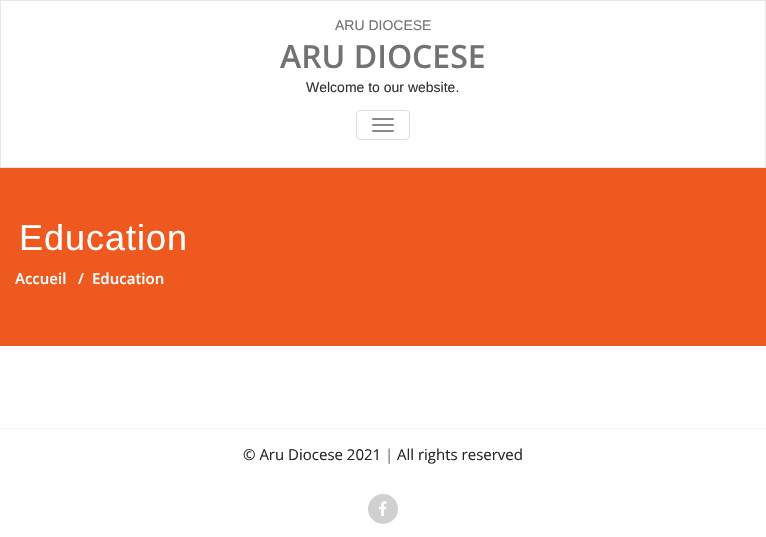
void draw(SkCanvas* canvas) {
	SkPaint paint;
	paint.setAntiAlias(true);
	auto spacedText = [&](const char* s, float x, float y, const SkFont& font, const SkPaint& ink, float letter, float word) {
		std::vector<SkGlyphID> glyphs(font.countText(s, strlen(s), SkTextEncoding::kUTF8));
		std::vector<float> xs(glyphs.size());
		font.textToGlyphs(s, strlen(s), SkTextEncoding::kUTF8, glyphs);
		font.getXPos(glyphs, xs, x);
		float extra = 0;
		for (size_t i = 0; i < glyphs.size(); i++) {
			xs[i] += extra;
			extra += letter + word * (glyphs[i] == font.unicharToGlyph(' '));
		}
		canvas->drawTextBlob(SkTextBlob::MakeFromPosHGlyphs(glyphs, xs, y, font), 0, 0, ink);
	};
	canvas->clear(0xffffffff);
	paint.setStroke(true);
	paint.setStrokeWidth(1);
	paint.setColor(0xffe7e7e7);
	canvas->drawRect(SkRect::MakeXYWH(0.5, 0.5, 765, 167), paint);
	SkFont f1(fontMgr->matchFamilyStyle("Liberation Sans", SkFontStyle::Normal()), 14);
	f1.setSubpixel(true);
	paint.setStroke(false);
	paint.setColor(0xff727272);
	canvas->drawString("ARU DIOCESE", 335, 30, f1, paint);
	SkFont f2(fontMgr->matchFamilyStyle("Open Sans", SkFontStyle(600, SkFontStyle::kNormal_Width, SkFontStyle::kUpright_Slant)), 32);
	f2.setSubpixel(true);
	canvas->drawString("ARU DIOCESE", 280, 68, f2, paint);
	paint.setColor(0xff333333);
	canvas->drawString("Welcome to our website.", 306, 92, f1, paint);
	paint.setStroke(true);
	paint.setColor(0xffdddddd);
	canvas->drawRoundRect(SkRect::MakeXYWH(356.5, 110.5, 53, 29), 3.5, 3.5, paint);
	paint.setStroke(false);
	paint.setColor(0xff888888);
	canvas->drawRoundRect(SkRect::MakeXYWH(372, 118, 22, 2), 1, 1, paint);
	canvas->drawRoundRect(SkRect::MakeXYWH(372, 124, 22, 2), 1, 1, paint);
	canvas->drawRoundRect(SkRect::MakeXYWH(372, 130, 22, 2), 1, 1, paint);
	paint.setColor(0xffee591f);
	canvas->drawRect(SkRect::MakeXYWH(0, 168, 766, 178), paint);
	SkFont f3(fontMgr->matchFamilyStyle("Liberation Sans", SkFontStyle::Normal()), 36);
	f3.setSubpixel(true);
	paint.setColor(0xffffffff);
	spacedText("Education", 19, 250, f3, paint, 1, 0);
	SkFont f4(fontMgr->matchFamilyStyle("Open Sans", SkFontStyle(600, SkFontStyle::kNormal_Width, SkFontStyle::kUpright_Slant)), 15);
	f4.setSubpixel(true);
	canvas->drawString("Accueil", 15, 284, f4, paint);
	canvas->drawString("/", 78, 284, f4, paint);
	canvas->drawString("Education", 92, 284, f4, paint);
	paint.setColor(0xfff4f4f4);
	canvas->drawRect(SkRect::MakeXYWH(0, 428, 766, 1), paint);
	SkFont f5(fontMgr->matchFamilyStyle("Open Sans", SkFontStyle::Normal()), 15);
	f5.setSubpixel(true);
	paint.setColor(0xff242526);
	canvas->drawString("© Aru Diocese 2021", 243, 460, f5, paint);
	paint.setColor(0xff727272);
	canvas->drawString("|", 385, 460, f5, paint);
	paint.setColor(0xff242526);
	canvas->drawString("All rights reserved", 397, 460, f5, paint);
	paint.setColor(0xffd0d0d0);
	canvas->drawCircle(383, 509, 15, paint);
	canvas->drawImageRect(SkImages::DeferredFromEncodedData(SkData::MakeFromFileName("img1.png")), SkRect::MakeXYWH(378, 501, 9, 16), SkSamplingOptions());
}
